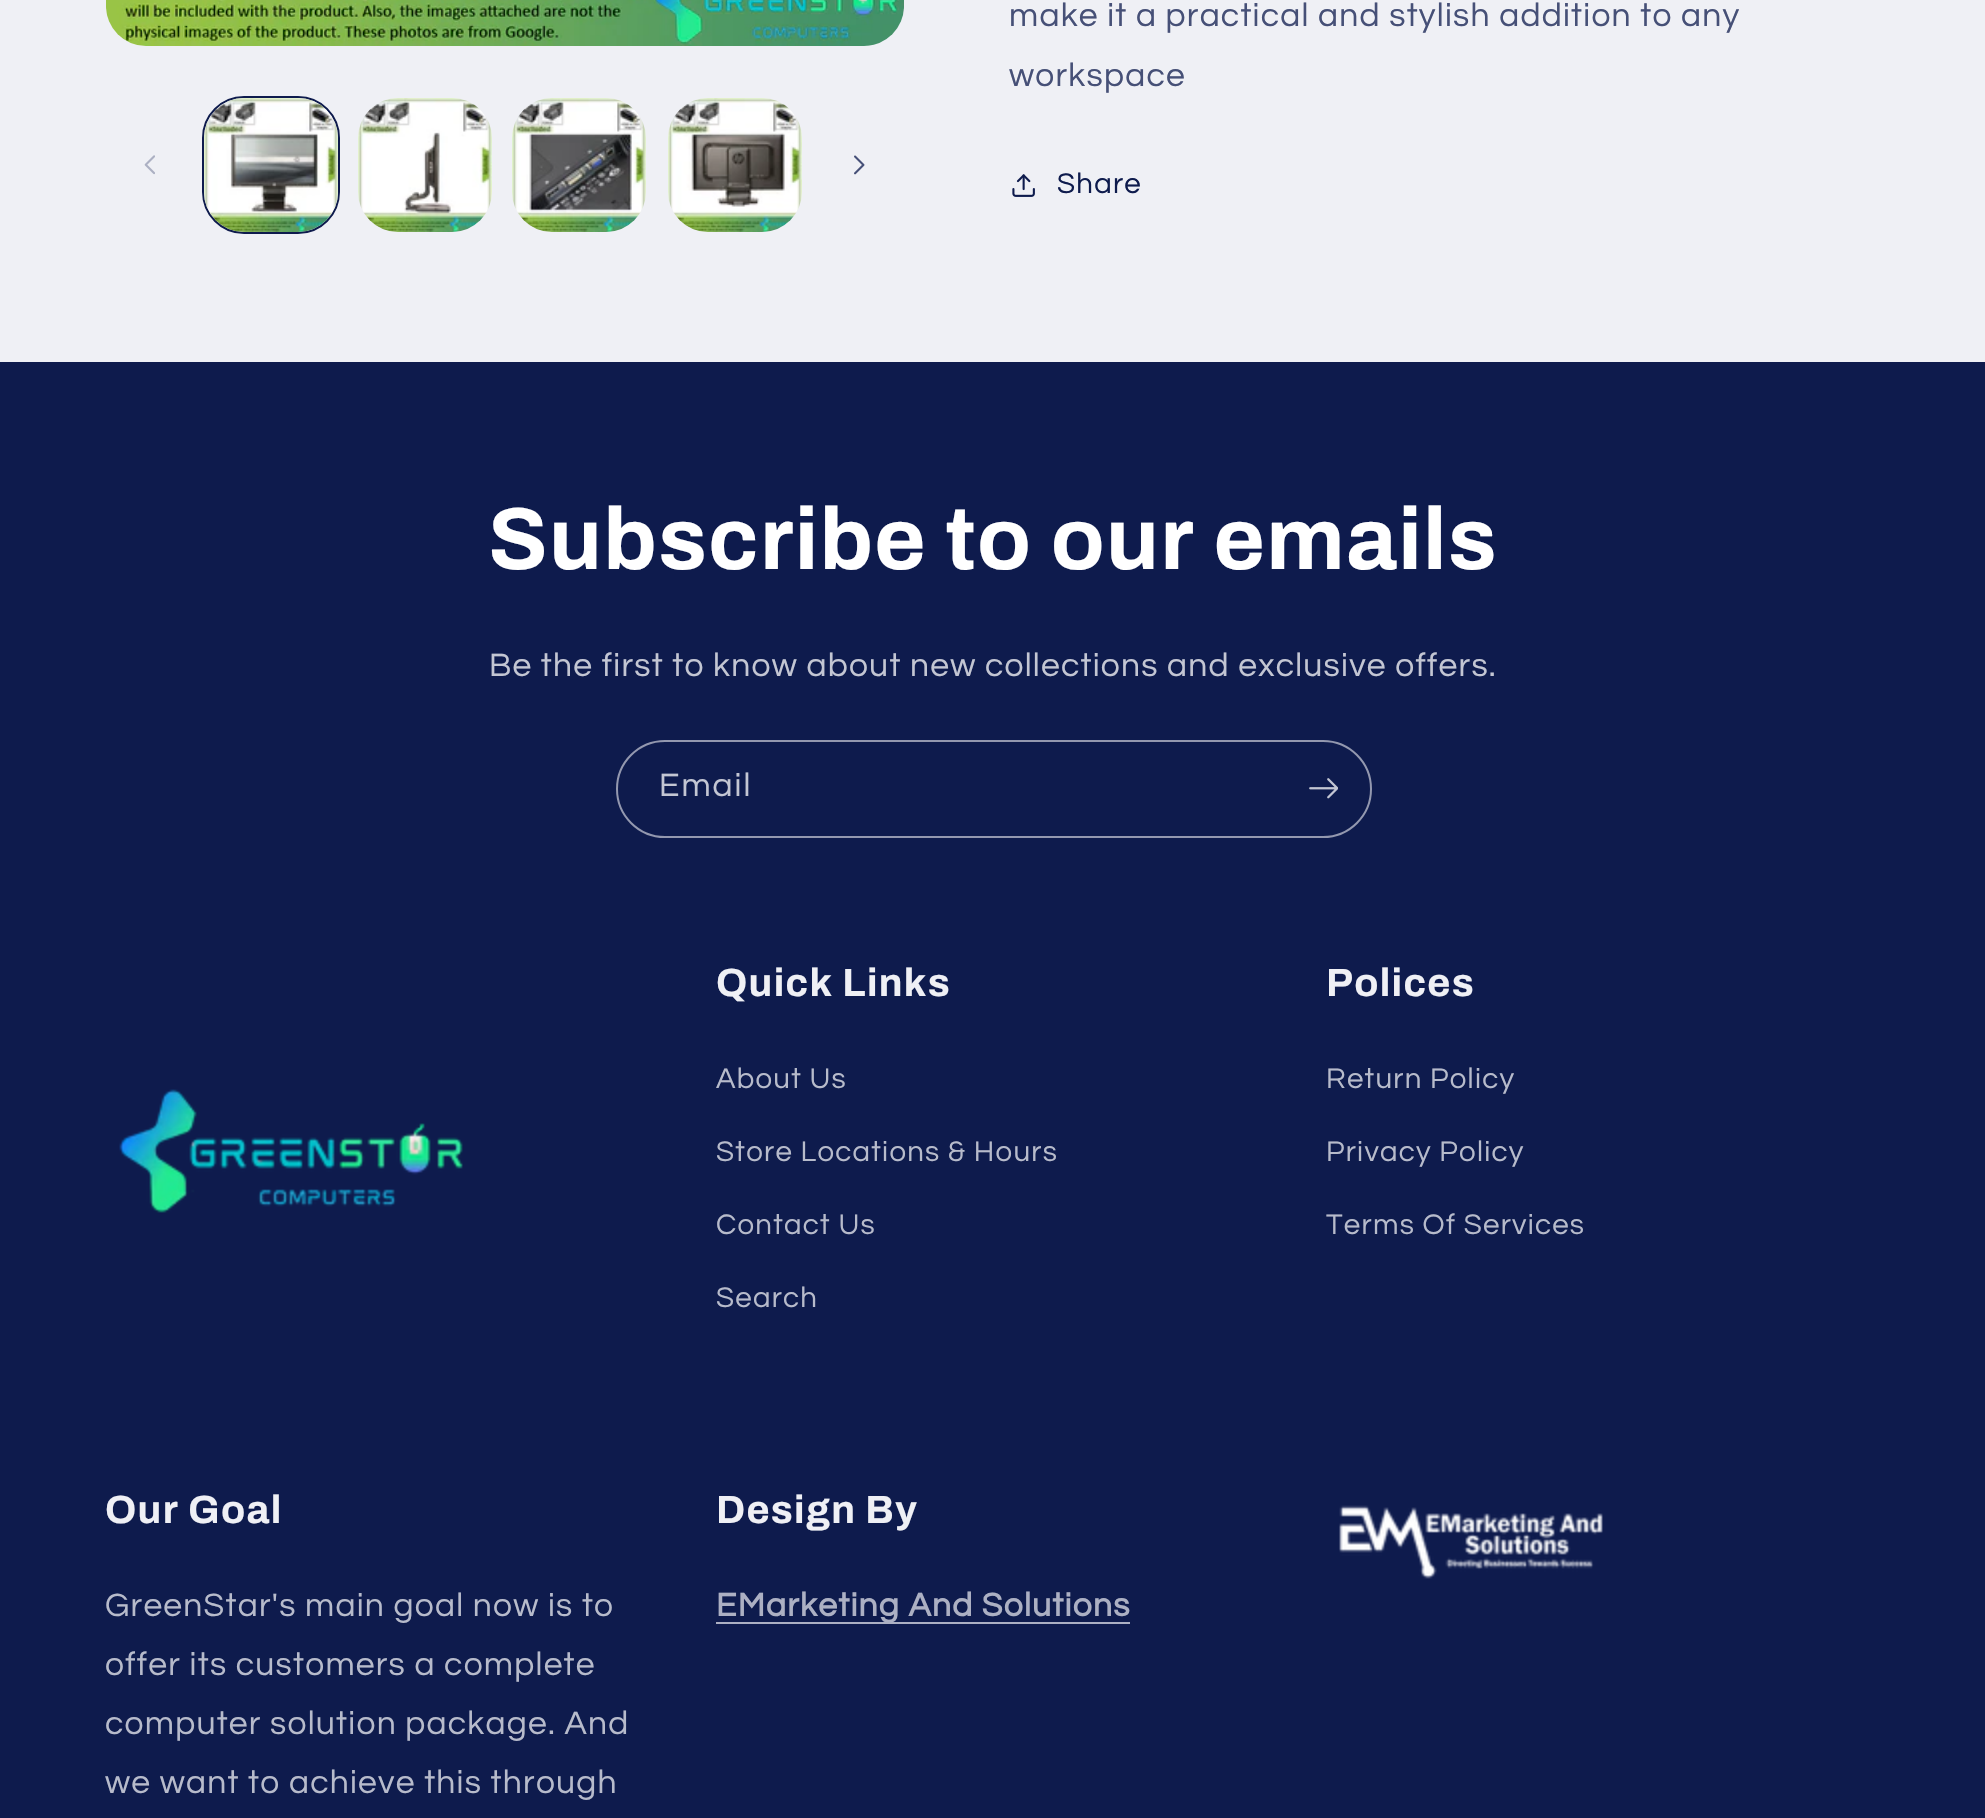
void draw(SkCanvas* canvas) {
	SkPaint paint;
	paint.setAntiAlias(true);
	auto spacedText = [&](const char* s, float x, float y, const SkFont& font, const SkPaint& ink, float letter, float word) {
		std::vector<SkGlyphID> glyphs(font.countText(s, strlen(s), SkTextEncoding::kUTF8));
		std::vector<float> xs(glyphs.size());
		font.textToGlyphs(s, strlen(s), SkTextEncoding::kUTF8, glyphs);
		font.getXPos(glyphs, xs, x);
		float extra = 0;
		for (size_t i = 0; i < glyphs.size(); i++) {
			xs[i] += extra;
			extra += letter + word * (glyphs[i] == font.unicharToGlyph(' '));
		}
		canvas->drawTextBlob(SkTextBlob::MakeFromPosHGlyphs(glyphs, xs, y, font), 0, 0, ink);
	};
	canvas->clear(0xffeff0f5);
	canvas->drawImageRect(SkImages::DeferredFromEncodedData(SkData::MakeFromFileName("img1.png")), SkRect::MakeXYWH(106, 0, 798, 46), SkSamplingOptions());
	canvas->drawImageRect(SkImages::DeferredFromEncodedData(SkData::MakeFromFileName("img2.png")), SkRect::MakeXYWH(144, 155, 11, 20), SkSamplingOptions());
	paint.setStroke(true);
	paint.setStrokeWidth(2);
	paint.setColor(0xff0e1b4d);
	canvas->drawRoundRect(SkRect::MakeXYWH(203, 97, 136, 136), 41, 41, paint);
	canvas->drawImageRect(SkImages::DeferredFromEncodedData(SkData::MakeFromFileName("img3.png")), SkRect::MakeXYWH(204, 98, 134, 134), SkSamplingOptions());
	canvas->drawImageRect(SkImages::DeferredFromEncodedData(SkData::MakeFromFileName("img4.png")), SkRect::MakeXYWH(358, 98, 134, 134), SkSamplingOptions());
	canvas->drawImageRect(SkImages::DeferredFromEncodedData(SkData::MakeFromFileName("img5.png")), SkRect::MakeXYWH(512, 98, 134, 134), SkSamplingOptions());
	canvas->drawImageRect(SkImages::DeferredFromEncodedData(SkData::MakeFromFileName("img6.png")), SkRect::MakeXYWH(668, 98, 134, 134), SkSamplingOptions());
	canvas->drawImageRect(SkImages::DeferredFromEncodedData(SkData::MakeFromFileName("img7.png")), SkRect::MakeXYWH(854, 155, 11, 20), SkSamplingOptions());
	SkFont f1(fontMgr->matchFamilyStyle("Questrial", SkFontStyle::Normal()), 33.6);
	f1.setSubpixel(true);
	paint.setStroke(false);
	paint.setColor(0xff465077);
	spacedText("make it a practical and stylish addition to any", 1009, 26, f1, paint, 1.25, 0);
	spacedText("workspace", 1009, 86, f1, paint, 1.25, 0);
	canvas->drawImageRect(SkImages::DeferredFromEncodedData(SkData::MakeFromFileName("img8.png")), SkRect::MakeXYWH(1012, 174, 23, 23), SkSamplingOptions());
	SkFont f2(fontMgr->matchFamilyStyle("Questrial", SkFontStyle::Normal()), 29.4);
	f2.setSubpixel(true);
	paint.setColor(0xff0e1b4d);
	spacedText("Share", 1057, 193, f2, paint, 1.25, 0);
	canvas->drawRect(SkRect::MakeXYWH(0, 362, 1985, 1456), paint);
	SkFont f3(fontMgr->matchFamilyStyle("Archivo", SkFontStyle::Bold()), 88);
	f3.setSubpixel(true);
	paint.setColor(0xffffffff);
	spacedText("Subscribe to our emails", 488, 569, f3, paint, 1.3, 0);
	paint.setColor(0xffc3c6d3);
	spacedText("Be the first to know about new collections and exclusive offers.", 489, 676, f1, paint, 1.25, 0);
	paint.setStroke(true);
	paint.setColor(0xff9398af);
	canvas->drawRoundRect(SkRect::MakeXYWH(617, 741, 754, 96), 48, 48, paint);
	paint.setStroke(false);
	paint.setColor(0xffc3c6d3);
	spacedText("Email", 659, 796, f1, paint, 2, 0);
	canvas->drawImageRect(SkImages::DeferredFromEncodedData(SkData::MakeFromFileName("img9.png")), SkRect::MakeXYWH(1309, 778, 29, 21), SkSamplingOptions());
	canvas->drawImageRect(SkImages::DeferredFromEncodedData(SkData::MakeFromFileName("img10.png")), SkRect::MakeXYWH(119, 1089, 344, 124), SkSamplingOptions());
	SkFont f4(fontMgr->matchFamilyStyle("Archivo", SkFontStyle::Bold()), 39.5);
	f4.setSubpixel(true);
	paint.setColor(0xffeff0f5);
	spacedText("Quick Links", 716, 996, f4, paint, 1.3, 0);
	paint.setColor(0xffb7bbcb);
	spacedText("About Us", 716, 1088, f2, paint, 1.25, 0);
	spacedText("Store Locations & Hours", 716, 1161, f2, paint, 1.25, 0);
	spacedText("Contact Us", 716, 1234, f2, paint, 1.25, 0);
	spacedText("Search", 716, 1307, f2, paint, 1.25, 0);
	paint.setColor(0xffeff0f5);
	spacedText("Polices", 1326, 996, f4, paint, 1.3, 0);
	paint.setColor(0xffb7bbcb);
	spacedText("Return Policy", 1326, 1088, f2, paint, 1.25, 0);
	spacedText("Privacy Policy", 1326, 1161, f2, paint, 1.25, 0);
	spacedText("Terms Of Services", 1326, 1234, f2, paint, 1.25, 0);
	paint.setColor(0xffeff0f5);
	spacedText("Our Goal", 105, 1523, f4, paint, 1.3, 0);
	paint.setColor(0xffb7bbcb);
	spacedText("GreenStar's main goal now is to", 105, 1616, f1, paint, 1.25, 0);
	spacedText("offer its customers a complete", 105, 1675, f1, paint, 1.25, 0);
	spacedText("computer solution package. And", 105, 1734, f1, paint, 1.25, 0);
	spacedText("we want to achieve this through", 105, 1793, f1, paint, 1.25, 0);
	paint.setColor(0xffeff0f5);
	spacedText("Design By", 716, 1523, f4, paint, 1.3, 0);
	paint.setColor(0xffacb0c3);
	canvas->drawRect(SkRect::MakeXYWH(716, 1622, 414, 2), paint);
	SkFont f5(fontMgr->matchFamilyStyle("Questrial", SkFontStyle::Bold()), 33.6);
	f5.setSubpixel(true);
	spacedText("EMarketing And Solutions", 716, 1616, f5, paint, 1.25, 0);
	canvas->drawImageRect(SkImages::DeferredFromEncodedData(SkData::MakeFromFileName("img11.png")), SkRect::MakeXYWH(1339, 1505, 264, 74), SkSamplingOptions());
}
